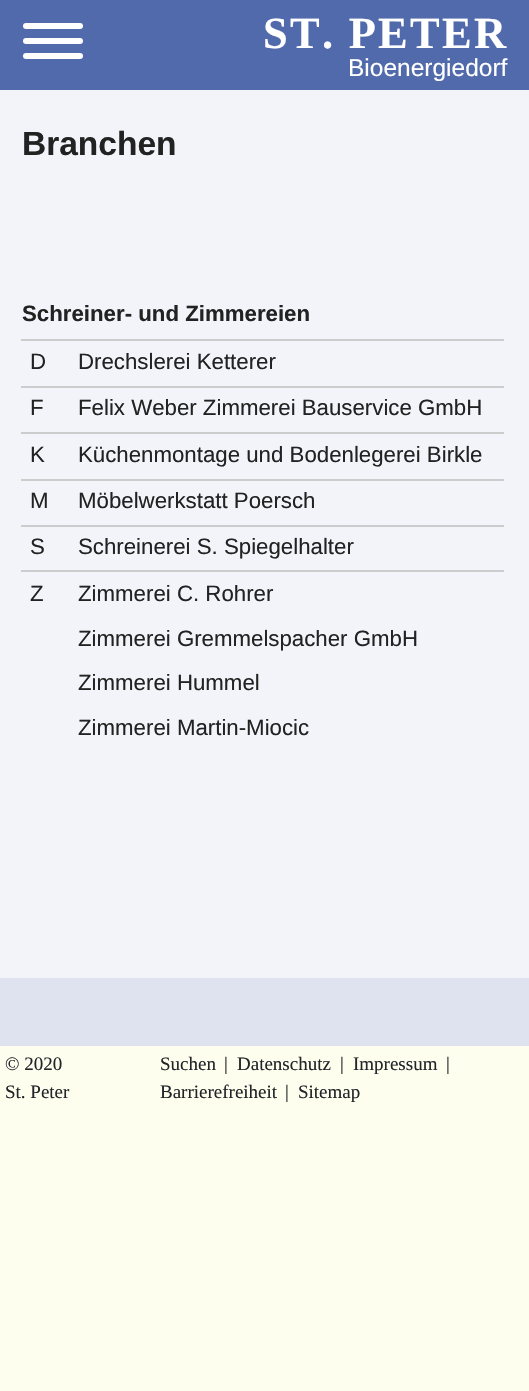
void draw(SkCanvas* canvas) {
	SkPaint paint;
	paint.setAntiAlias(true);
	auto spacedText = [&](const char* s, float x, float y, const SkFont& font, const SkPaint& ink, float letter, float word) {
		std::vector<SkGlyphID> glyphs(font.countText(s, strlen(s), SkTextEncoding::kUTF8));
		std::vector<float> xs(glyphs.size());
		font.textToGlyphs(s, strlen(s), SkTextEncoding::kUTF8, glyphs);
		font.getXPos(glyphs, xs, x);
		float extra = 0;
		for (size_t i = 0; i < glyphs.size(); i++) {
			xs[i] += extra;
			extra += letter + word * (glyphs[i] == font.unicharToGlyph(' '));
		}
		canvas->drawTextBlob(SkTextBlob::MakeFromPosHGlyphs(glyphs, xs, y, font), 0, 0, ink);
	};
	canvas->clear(0xfffefeee);
	paint.setColor(0xff516aab);
	canvas->drawRect(SkRect::MakeXYWH(0, 0, 529, 90), paint);
	paint.setColor(0xffffffff);
	canvas->drawRoundRect(SkRect::MakeXYWH(23, 53, 60, 6), 3, 3, paint);
	canvas->drawRoundRect(SkRect::MakeXYWH(23, 23, 60, 6), 3, 3, paint);
	canvas->drawRoundRect(SkRect::MakeXYWH(23, 38, 60, 6), 3, 3, paint);
	SkFont f1(fontMgr->matchFamilyStyle("Liberation Serif", SkFontStyle::Bold()), 44.5);
	f1.setSubpixel(true);
	spacedText("ST. PETER", 263, 48, f1, paint, 2.25, 0);
	SkFont f2(fontMgr->matchFamilyStyle("Liberation Sans", SkFontStyle::Normal()), 24.5);
	f2.setSubpixel(true);
	canvas->drawString("Bioenergiedorf", 348, 76, f2, paint);
	paint.setColor(0xfff2f4f9);
	canvas->drawRect(SkRect::MakeXYWH(0, 90, 529, 888), paint);
	SkFont f3(fontMgr->matchFamilyStyle("Liberation Sans", SkFontStyle::Bold()), 33.5);
	f3.setSubpixel(true);
	paint.setColor(0xff222222);
	canvas->drawString("Branchen", 22, 155, f3, paint);
	SkFont f4(fontMgr->matchFamilyStyle("Liberation Sans", SkFontStyle::Bold()), 22.25);
	f4.setSubpixel(true);
	canvas->drawString("Schreiner- und Zimmereien", 22, 321, f4, paint);
	paint.setColor(0xffcccccc);
	canvas->drawRect(SkRect::MakeXYWH(21, 339, 483, 2), paint);
	SkFont f5(fontMgr->matchFamilyStyle("Liberation Sans", SkFontStyle::Normal()), 22.25);
	f5.setSubpixel(true);
	paint.setColor(0xff222222);
	canvas->drawString("D", 30, 369, f5, paint);
	canvas->drawString("Drechslerei Ketterer", 78, 369, f5, paint);
	paint.setColor(0xffcccccc);
	canvas->drawRect(SkRect::MakeXYWH(21, 386, 483, 2), paint);
	paint.setColor(0xff222222);
	canvas->drawString("F", 30, 415, f5, paint);
	canvas->drawString("Felix Weber Zimmerei Bauservice GmbH", 78, 415, f5, paint);
	paint.setColor(0xffcccccc);
	canvas->drawRect(SkRect::MakeXYWH(21, 432, 483, 2), paint);
	paint.setColor(0xff222222);
	canvas->drawString("K", 30, 462, f5, paint);
	canvas->drawString("Küchenmontage und Bodenlegerei Birkle", 78, 462, f5, paint);
	paint.setColor(0xffcccccc);
	canvas->drawRect(SkRect::MakeXYWH(21, 479, 483, 2), paint);
	paint.setColor(0xff222222);
	canvas->drawString("M", 30, 508, f5, paint);
	canvas->drawString("Möbelwerkstatt Poersch", 78, 508, f5, paint);
	paint.setColor(0xffcccccc);
	canvas->drawRect(SkRect::MakeXYWH(21, 525, 483, 2), paint);
	paint.setColor(0xff222222);
	canvas->drawString("S", 30, 554, f5, paint);
	canvas->drawString("Schreinerei S. Spiegelhalter", 78, 554, f5, paint);
	paint.setColor(0xffcccccc);
	canvas->drawRect(SkRect::MakeXYWH(21, 570, 483, 2), paint);
	paint.setColor(0xff222222);
	canvas->drawString("Z", 30, 601, f5, paint);
	canvas->drawString("Zimmerei C. Rohrer", 78, 601, f5, paint);
	canvas->drawString("Zimmerei Gremmelspacher GmbH", 78, 646, f5, paint);
	canvas->drawString("Zimmerei Hummel", 78, 690, f5, paint);
	canvas->drawString("Zimmerei Martin-Miocic", 78, 735, f5, paint);
	paint.setColor(0xffdee3ef);
	canvas->drawRect(SkRect::MakeXYWH(0, 978, 529, 68), paint);
	SkFont f6(fontMgr->matchFamilyStyle("Liberation Serif", SkFontStyle::Normal()), 19);
	f6.setSubpixel(true);
	paint.setColor(0xff212529);
	canvas->drawString("© 2020", 5, 1070, f6, paint);
	canvas->drawString("St. Peter", 5, 1098, f6, paint);
	canvas->drawString("Suchen", 160, 1070, f6, paint);
	canvas->drawString("|", 224, 1070, f6, paint);
	canvas->drawString("Datenschutz", 237, 1070, f6, paint);
	canvas->drawString("|", 340, 1070, f6, paint);
	canvas->drawString("Impressum", 353, 1070, f6, paint);
	canvas->drawString("|", 446, 1070, f6, paint);
	canvas->drawString("Barrierefreiheit", 160, 1098, f6, paint);
	canvas->drawString("|", 285, 1098, f6, paint);
	canvas->drawString("Sitemap", 298, 1098, f6, paint);
}
